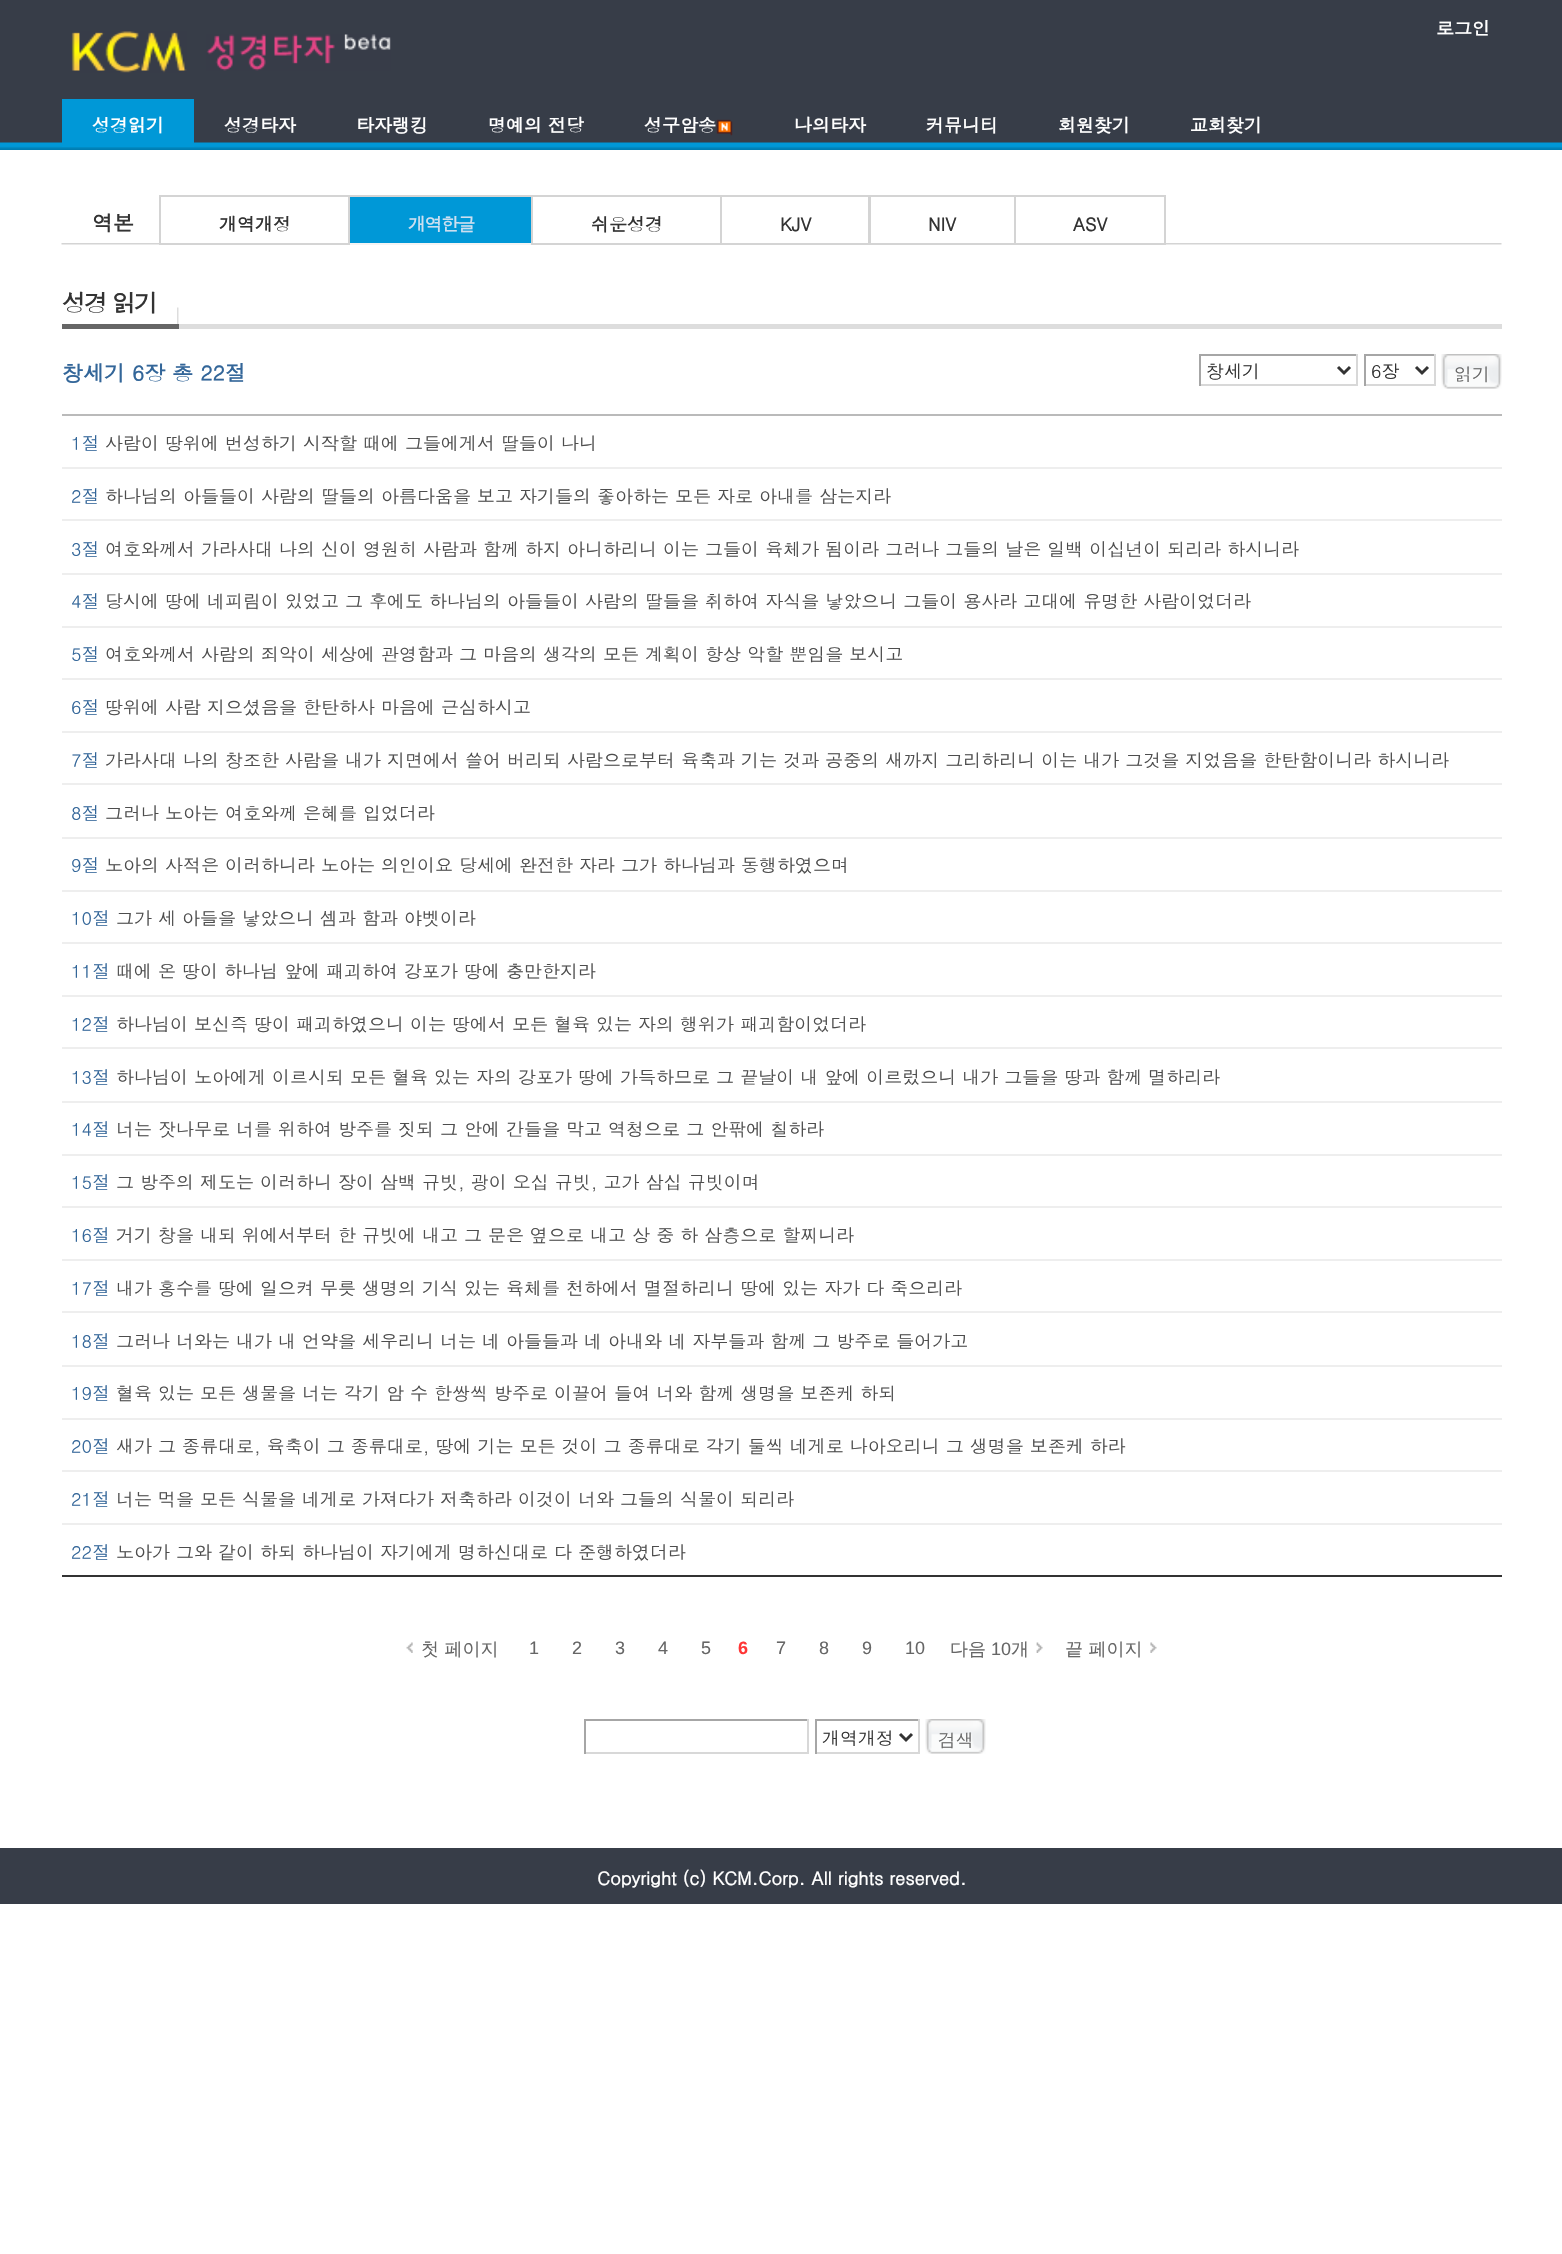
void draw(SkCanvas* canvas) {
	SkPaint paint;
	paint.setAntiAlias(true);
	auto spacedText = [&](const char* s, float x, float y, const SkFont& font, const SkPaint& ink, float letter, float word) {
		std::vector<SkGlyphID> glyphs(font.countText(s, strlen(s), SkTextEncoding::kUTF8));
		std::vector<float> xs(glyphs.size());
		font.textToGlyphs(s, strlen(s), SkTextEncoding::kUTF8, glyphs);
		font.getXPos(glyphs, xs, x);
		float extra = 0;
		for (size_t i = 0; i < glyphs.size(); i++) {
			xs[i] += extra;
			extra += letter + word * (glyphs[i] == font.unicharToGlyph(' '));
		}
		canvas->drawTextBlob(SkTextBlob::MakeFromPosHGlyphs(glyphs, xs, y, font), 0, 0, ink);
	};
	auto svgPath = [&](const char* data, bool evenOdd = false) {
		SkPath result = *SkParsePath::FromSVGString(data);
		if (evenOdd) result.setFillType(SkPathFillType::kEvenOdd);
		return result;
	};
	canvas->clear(0xffffffff);
	canvas->drawImageRect(SkImages::DeferredFromEncodedData(SkData::MakeFromFileName("img1.png")), SkRect::MakeXYWH(0, 0, 1562, 150), SkSamplingOptions());
	paint.setColor(0xff373d48);
	canvas->drawRect(SkRect::MakeXYWH(0, 1848, 1562, 56), paint);
	SkFont f1(fontMgr->matchFamilyStyle("Dotum", SkFontStyle::Bold()), 18);
	f1.setSubpixel(true);
	paint.setColor(0xffffffff);
	canvas->drawString("로그인", 1436, 35, f1, paint);
	canvas->drawImageRect(SkImages::DeferredFromEncodedData(SkData::MakeFromFileName("img2.png")), SkRect::MakeXYWH(71, 31, 116, 42), SkSamplingOptions());
	canvas->drawImageRect(SkImages::DeferredFromEncodedData(SkData::MakeFromFileName("img3.png")), SkRect::MakeXYWH(206, 34, 185, 37), SkSamplingOptions());
	paint.setColor(0xff0098d7);
	canvas->drawRect(SkRect::MakeXYWH(62, 99, 132, 48), paint);
	paint.setColor(0xffffffff);
	canvas->drawString("성경읽기", 92, 132, f1, paint);
	canvas->drawString("성경타자", 224, 132, f1, paint);
	canvas->drawString("타자랭킹", 356, 132, f1, paint);
	canvas->drawString("명예의 전당", 488, 132, f1, paint);
	canvas->drawString("성구암송", 644, 132, f1, paint);
	canvas->drawImageRect(SkImages::DeferredFromEncodedData(SkData::MakeFromFileName("img4.png")), SkRect::MakeXYWH(716, 119, 17, 17), SkSamplingOptions());
	canvas->drawString("나의타자", 794, 132, f1, paint);
	canvas->drawString("커뮤니티", 926, 132, f1, paint);
	canvas->drawString("회원찾기", 1058, 132, f1, paint);
	canvas->drawString("교회찾기", 1190, 132, f1, paint);
	canvas->drawImageRect(SkImages::DeferredFromEncodedData(SkData::MakeFromFileName("img5.png")), SkRect::MakeXYWH(61, 243, 1441, 2), SkSamplingOptions());
	SkFont f2(fontMgr->matchFamilyStyle("Dotum", SkFontStyle::Bold()), 21);
	f2.setSubpixel(true);
	paint.setColor(0xff333333);
	canvas->drawString("역본", 92, 231, f2, paint);
	paint.setStroke(true);
	paint.setStrokeWidth(2);
	paint.setColor(0xffd4d4d4);
	canvas->drawRect(SkRect::MakeXYWH(160, 196, 189, 48), paint);
	paint.setStroke(false);
	paint.setColor(0xff333333);
	canvas->drawString("개역개정", 219, 231, f1, paint);
	paint.setColor(0xff0098d7);
	canvas->drawRect(SkRect::MakeXYWH(350, 197, 181, 46), paint);
	paint.setColor(0xffd4d4d4);
	canvas->drawRect(SkRect::MakeXYWH(348, 195, 185, 2), paint);
	paint.setColor(0xfff4f4f4);
	canvas->drawRect(SkRect::MakeXYWH(348, 243, 185, 2), paint);
	paint.setColor(0xffd4d4d4);
	canvas->drawRect(SkRect::MakeXYWH(348, 243, 2, 2), paint);
	paint.setColor(0xffccdff0);
	spacedText("개역한글", 408, 231, f1, paint, -1.5, 0);
	paint.setStroke(true);
	paint.setColor(0xffd4d4d4);
	canvas->drawRect(SkRect::MakeXYWH(532, 196, 189, 48), paint);
	paint.setStroke(false);
	paint.setColor(0xff333333);
	canvas->drawString("쉬운성경", 591, 231, f1, paint);
	paint.setStroke(true);
	paint.setColor(0xffd4d4d4);
	canvas->drawRect(SkRect::MakeXYWH(721, 196, 148, 48), paint);
	paint.setStroke(false);
	paint.setColor(0xff333333);
	canvas->drawString("KJV", 780, 231, f1, paint);
	paint.setStroke(true);
	paint.setColor(0xffd4d4d4);
	canvas->drawRect(SkRect::MakeXYWH(870, 196, 145, 48), paint);
	paint.setStroke(false);
	paint.setColor(0xff333333);
	canvas->drawString("NIV", 928, 231, f1, paint);
	paint.setStroke(true);
	paint.setColor(0xffd4d4d4);
	canvas->drawRect(SkRect::MakeXYWH(1015, 196, 150, 48), paint);
	paint.setStroke(false);
	paint.setColor(0xff333333);
	canvas->drawString("ASV", 1073, 231, f1, paint);
	paint.setColor(0xffdddddd);
	canvas->drawRect(SkRect::MakeXYWH(179, 324, 1323, 5), paint);
	canvas->drawImageRect(SkImages::DeferredFromEncodedData(SkData::MakeFromFileName("img6.png")), SkRect::MakeXYWH(177, 307, 2, 17), SkSamplingOptions());
	paint.setColor(0xff666666);
	canvas->drawRect(SkRect::MakeXYWH(62, 324, 117, 5), paint);
	SkFont f3(fontMgr->matchFamilyStyle("Dotum", SkFontStyle::Bold()), 24);
	f3.setSubpixel(true);
	paint.setColor(0xff333333);
	spacedText("성경 읽기", 62, 312, f3, paint, -2, 0);
	paint.setColor(0xff336699);
	canvas->drawString("창세기 6장 총 22절", 62, 381, f2, paint);
	paint.setColor(0xffa6a6a6);
	canvas->drawRect(SkRect::MakeXYWH(1199, 354, 159, 2), paint);
	paint.setColor(0xffd8d8d8);
	canvas->drawRect(SkRect::MakeXYWH(1356, 354, 2, 32), paint);
	canvas->drawRect(SkRect::MakeXYWH(1199, 384, 159, 2), paint);
	paint.setColor(0xffa6a6a6);
	canvas->drawRect(SkRect::MakeXYWH(1199, 354, 2, 32), paint);
	paint.setStroke(true);
	paint.setStrokeWidth(3);
	paint.setColor(0xff333333);
	canvas->drawPath(svgPath("M1338 367L1344 373L1350 367"), paint);
	SkFont f4(fontMgr->matchFamilyStyle("Dotum", SkFontStyle::Normal()), 18);
	f4.setSubpixel(true);
	paint.setStroke(false);
	canvas->drawString("창세기", 1206, 378, f4, paint);
	paint.setColor(0xffa6a6a6);
	canvas->drawRect(SkRect::MakeXYWH(1364, 354, 72, 2), paint);
	paint.setColor(0xffd8d8d8);
	canvas->drawRect(SkRect::MakeXYWH(1434, 354, 2, 32), paint);
	canvas->drawRect(SkRect::MakeXYWH(1364, 384, 72, 2), paint);
	paint.setColor(0xffa6a6a6);
	canvas->drawRect(SkRect::MakeXYWH(1364, 354, 2, 32), paint);
	paint.setStroke(true);
	paint.setColor(0xff333333);
	canvas->drawPath(svgPath("M1416 367L1422 373L1428 367"), paint);
	paint.setStroke(false);
	canvas->drawString("6장", 1371, 378, f4, paint);
	canvas->drawImageRect(SkImages::DeferredFromEncodedData(SkData::MakeFromFileName("img7.png")), SkRect::MakeXYWH(1441, 354, 7, 35), SkSamplingOptions());
	canvas->drawImageRect(SkImages::DeferredFromEncodedData(SkData::MakeFromFileName("img8.png")), SkRect::MakeXYWH(1447, 354, 55, 35), SkSamplingOptions());
	paint.setColor(0xff666666);
	canvas->drawString("읽기", 1454, 381, f4, paint);
	paint.setColor(0xffbababa);
	canvas->drawRect(SkRect::MakeXYWH(62, 414, 1440, 2), paint);
	paint.setColor(0xffeeeeee);
	canvas->drawRect(SkRect::MakeXYWH(62, 467, 1440, 2), paint);
	paint.setColor(0xff336699);
	canvas->drawString("1절", 71, 450, f4, paint);
	paint.setColor(0xff4d4d4d);
	canvas->drawString("사람이 땅위에 번성하기 시작할 때에 그들에게서 딸들이 나니", 105, 450, f4, paint);
	paint.setColor(0xffeeeeee);
	canvas->drawRect(SkRect::MakeXYWH(62, 519, 1440, 2), paint);
	paint.setColor(0xff336699);
	canvas->drawString("2절", 71, 503, f4, paint);
	paint.setColor(0xff4d4d4d);
	canvas->drawString("하나님의 아들들이 사람의 딸들의 아름다움을 보고 자기들의 좋아하는 모든 자로 아내를 삼는지라", 105, 503, f4, paint);
	paint.setColor(0xffeeeeee);
	canvas->drawRect(SkRect::MakeXYWH(62, 573, 1440, 2), paint);
	paint.setColor(0xff336699);
	canvas->drawString("3절", 71, 556, f4, paint);
	paint.setColor(0xff4d4d4d);
	canvas->drawString("여호와께서 가라사대 나의 신이 영원히 사람과 함께 하지 아니하리니 이는 그들이 육체가 됨이라 그러나 그들의 날은 일백 이십년이 되리라 하시니라", 105, 556, f4, paint);
	paint.setColor(0xffeeeeee);
	canvas->drawRect(SkRect::MakeXYWH(62, 626, 1440, 2), paint);
	paint.setColor(0xff336699);
	canvas->drawString("4절", 71, 608, f4, paint);
	paint.setColor(0xff4d4d4d);
	canvas->drawString("당시에 땅에 네피림이 있었고 그 후에도 하나님의 아들들이 사람의 딸들을 취하여 자식을 낳았으니 그들이 용사라 고대에 유명한 사람이었더라", 105, 608, f4, paint);
	paint.setColor(0xffeeeeee);
	canvas->drawRect(SkRect::MakeXYWH(62, 678, 1440, 2), paint);
	paint.setColor(0xff336699);
	canvas->drawString("5절", 71, 661, f4, paint);
	paint.setColor(0xff4d4d4d);
	canvas->drawString("여호와께서 사람의 죄악이 세상에 관영함과 그 마음의 생각의 모든 계획이 항상 악할 뿐임을 보시고", 105, 661, f4, paint);
	paint.setColor(0xffeeeeee);
	canvas->drawRect(SkRect::MakeXYWH(62, 731, 1440, 2), paint);
	paint.setColor(0xff336699);
	canvas->drawString("6절", 71, 714, f4, paint);
	paint.setColor(0xff4d4d4d);
	canvas->drawString("땅위에 사람 지으셨음을 한탄하사 마음에 근심하시고", 105, 714, f4, paint);
	paint.setColor(0xffeeeeee);
	canvas->drawRect(SkRect::MakeXYWH(62, 783, 1440, 2), paint);
	paint.setColor(0xff336699);
	canvas->drawString("7절", 71, 767, f4, paint);
	paint.setColor(0xff4d4d4d);
	canvas->drawString("가라사대 나의 창조한 사람을 내가 지면에서 쓸어 버리되 사람으로부터 육축과 기는 것과 공중의 새까지 그리하리니 이는 내가 그것을 지었음을 한탄함이니라 하시니라", 105, 767, f4, paint);
	paint.setColor(0xffeeeeee);
	canvas->drawRect(SkRect::MakeXYWH(62, 837, 1440, 2), paint);
	paint.setColor(0xff336699);
	canvas->drawString("8절", 71, 820, f4, paint);
	paint.setColor(0xff4d4d4d);
	canvas->drawString("그러나 노아는 여호와께 은혜를 입었더라", 105, 820, f4, paint);
	paint.setColor(0xffeeeeee);
	canvas->drawRect(SkRect::MakeXYWH(62, 890, 1440, 2), paint);
	paint.setColor(0xff336699);
	canvas->drawString("9절", 71, 872, f4, paint);
	paint.setColor(0xff4d4d4d);
	canvas->drawString("노아의 사적은 이러하니라 노아는 의인이요 당세에 완전한 자라 그가 하나님과 동행하였으며", 105, 872, f4, paint);
	paint.setColor(0xffeeeeee);
	canvas->drawRect(SkRect::MakeXYWH(62, 942, 1440, 2), paint);
	paint.setColor(0xff336699);
	canvas->drawString("10절", 71, 925, f4, paint);
	paint.setColor(0xff4d4d4d);
	canvas->drawString("그가 세 아들을 낳았으니 셈과 함과 야벳이라", 116, 925, f4, paint);
	paint.setColor(0xffeeeeee);
	canvas->drawRect(SkRect::MakeXYWH(62, 995, 1440, 2), paint);
	paint.setColor(0xff336699);
	canvas->drawString("11절", 71, 978, f4, paint);
	paint.setColor(0xff4d4d4d);
	canvas->drawString("때에 온 땅이 하나님 앞에 패괴하여 강포가 땅에 충만한지라", 116, 978, f4, paint);
	paint.setColor(0xffeeeeee);
	canvas->drawRect(SkRect::MakeXYWH(62, 1047, 1440, 2), paint);
	paint.setColor(0xff336699);
	canvas->drawString("12절", 71, 1031, f4, paint);
	paint.setColor(0xff4d4d4d);
	canvas->drawString("하나님이 보신즉 땅이 패괴하였으니 이는 땅에서 모든 혈육 있는 자의 행위가 패괴함이었더라", 116, 1031, f4, paint);
	paint.setColor(0xffeeeeee);
	canvas->drawRect(SkRect::MakeXYWH(62, 1101, 1440, 2), paint);
	paint.setColor(0xff336699);
	canvas->drawString("13절", 71, 1084, f4, paint);
	paint.setColor(0xff4d4d4d);
	canvas->drawString("하나님이 노아에게 이르시되 모든 혈육 있는 자의 강포가 땅에 가득하므로 그 끝날이 내 앞에 이르렀으니 내가 그들을 땅과 함께 멸하리라", 116, 1084, f4, paint);
	paint.setColor(0xffeeeeee);
	canvas->drawRect(SkRect::MakeXYWH(62, 1154, 1440, 2), paint);
	paint.setColor(0xff336699);
	canvas->drawString("14절", 71, 1136, f4, paint);
	paint.setColor(0xff4d4d4d);
	canvas->drawString("너는 잣나무로 너를 위하여 방주를 짓되 그 안에 간들을 막고 역청으로 그 안팎에 칠하라", 116, 1136, f4, paint);
	paint.setColor(0xffeeeeee);
	canvas->drawRect(SkRect::MakeXYWH(62, 1206, 1440, 2), paint);
	paint.setColor(0xff336699);
	canvas->drawString("15절", 71, 1189, f4, paint);
	paint.setColor(0xff4d4d4d);
	canvas->drawString("그 방주의 제도는 이러하니 장이 삼백 규빗, 광이 오십 규빗, 고가 삼십 규빗이며", 116, 1189, f4, paint);
	paint.setColor(0xffeeeeee);
	canvas->drawRect(SkRect::MakeXYWH(62, 1259, 1440, 2), paint);
	paint.setColor(0xff336699);
	canvas->drawString("16절", 71, 1242, f4, paint);
	paint.setColor(0xff4d4d4d);
	canvas->drawString("거기 창을 내되 위에서부터 한 규빗에 내고 그 문은 옆으로 내고 상 중 하 삼층으로 할찌니라", 116, 1242, f4, paint);
	paint.setColor(0xffeeeeee);
	canvas->drawRect(SkRect::MakeXYWH(62, 1311, 1440, 2), paint);
	paint.setColor(0xff336699);
	canvas->drawString("17절", 71, 1295, f4, paint);
	paint.setColor(0xff4d4d4d);
	canvas->drawString("내가 홍수를 땅에 일으켜 무릇 생명의 기식 있는 육체를 천하에서 멸절하리니 땅에 있는 자가 다 죽으리라", 116, 1295, f4, paint);
	paint.setColor(0xffeeeeee);
	canvas->drawRect(SkRect::MakeXYWH(62, 1365, 1440, 2), paint);
	paint.setColor(0xff336699);
	canvas->drawString("18절", 71, 1348, f4, paint);
	paint.setColor(0xff4d4d4d);
	canvas->drawString("그러나 너와는 내가 내 언약을 세우리니 너는 네 아들들과 네 아내와 네 자부들과 함께 그 방주로 들어가고", 116, 1348, f4, paint);
	paint.setColor(0xffeeeeee);
	canvas->drawRect(SkRect::MakeXYWH(62, 1418, 1440, 2), paint);
	paint.setColor(0xff336699);
	canvas->drawString("19절", 71, 1400, f4, paint);
	paint.setColor(0xff4d4d4d);
	canvas->drawString("혈육 있는 모든 생물을 너는 각기 암 수 한쌍씩 방주로 이끌어 들여 너와 함께 생명을 보존케 하되", 116, 1400, f4, paint);
	paint.setColor(0xffeeeeee);
	canvas->drawRect(SkRect::MakeXYWH(62, 1470, 1440, 2), paint);
	paint.setColor(0xff336699);
	canvas->drawString("20절", 71, 1453, f4, paint);
	paint.setColor(0xff4d4d4d);
	canvas->drawString("새가 그 종류대로, 육축이 그 종류대로, 땅에 기는 모든 것이 그 종류대로 각기 둘씩 네게로 나아오리니 그 생명을 보존케 하라", 116, 1453, f4, paint);
	paint.setColor(0xffeeeeee);
	canvas->drawRect(SkRect::MakeXYWH(62, 1523, 1440, 2), paint);
	paint.setColor(0xff336699);
	canvas->drawString("21절", 71, 1506, f4, paint);
	paint.setColor(0xff4d4d4d);
	canvas->drawString("너는 먹을 모든 식물을 네게로 가져다가 저축하라 이것이 너와 그들의 식물이 되리라", 116, 1506, f4, paint);
	paint.setColor(0xff336699);
	canvas->drawString("22절", 71, 1559, f4, paint);
	paint.setColor(0xff4d4d4d);
	canvas->drawString("노아가 그와 같이 하되 하나님이 자기에게 명하신대로 다 준행하였더라", 116, 1559, f4, paint);
	paint.setColor(0xff333333);
	canvas->drawRect(SkRect::MakeXYWH(62, 1575, 1440, 2), paint);
	canvas->drawImageRect(SkImages::DeferredFromEncodedData(SkData::MakeFromFileName("img9.png")), SkRect::MakeXYWH(406, 1642, 7, 11), SkSamplingOptions());
	SkFont f5(fontMgr->matchFamilyStyle("WenQuanYi Zen Hei", SkFontStyle(500, SkFontStyle::kNormal_Width, SkFontStyle::kUpright_Slant)), 18);
	f5.setSubpixel(true);
	paint.setColor(0xff666666);
	canvas->drawString("첫 페이지", 421, 1655, f5, paint);
	SkFont f6(fontMgr->matchFamilyStyle("Liberation Sans", SkFontStyle::Normal()), 18);
	f6.setSubpixel(true);
	canvas->drawString("1", 529, 1654, f6, paint);
	canvas->drawString("2", 572, 1654, f6, paint);
	canvas->drawString("3", 615, 1654, f6, paint);
	canvas->drawString("4", 658, 1654, f6, paint);
	canvas->drawString("5", 701, 1654, f6, paint);
	SkFont f7(fontMgr->matchFamilyStyle("Liberation Sans", SkFontStyle::Bold()), 18);
	f7.setSubpixel(true);
	paint.setColor(0xffff3636);
	canvas->drawString("6", 738, 1654, f7, paint);
	paint.setColor(0xff666666);
	canvas->drawString("7", 776, 1654, f6, paint);
	canvas->drawString("8", 819, 1654, f6, paint);
	canvas->drawString("9", 862, 1654, f6, paint);
	canvas->drawString("10", 905, 1654, f6, paint);
	canvas->drawImageRect(SkImages::DeferredFromEncodedData(SkData::MakeFromFileName("img10.png")), SkRect::MakeXYWH(1036, 1642, 7, 11), SkSamplingOptions());
	canvas->drawString("다음", 950, 1655, f5, paint);
	canvas->drawString("10", 991, 1655, f6, paint);
	canvas->drawString("개", 1011, 1655, f5, paint);
	canvas->drawImageRect(SkImages::DeferredFromEncodedData(SkData::MakeFromFileName("img11.png")), SkRect::MakeXYWH(1150, 1642, 7, 11), SkSamplingOptions());
	canvas->drawString("끝 페이지", 1065, 1655, f5, paint);
	paint.setColor(0xffa6a6a6);
	canvas->drawRect(SkRect::MakeXYWH(584, 1719, 225, 2), paint);
	paint.setColor(0xffd8d8d8);
	canvas->drawRect(SkRect::MakeXYWH(807, 1719, 2, 35), paint);
	canvas->drawRect(SkRect::MakeXYWH(584, 1752, 225, 2), paint);
	paint.setColor(0xffa6a6a6);
	canvas->drawRect(SkRect::MakeXYWH(584, 1719, 2, 35), paint);
	canvas->drawRect(SkRect::MakeXYWH(815, 1719, 105, 2), paint);
	paint.setColor(0xffd8d8d8);
	canvas->drawRect(SkRect::MakeXYWH(918, 1719, 2, 35), paint);
	canvas->drawRect(SkRect::MakeXYWH(815, 1752, 105, 2), paint);
	paint.setColor(0xffa6a6a6);
	canvas->drawRect(SkRect::MakeXYWH(815, 1719, 2, 35), paint);
	paint.setStroke(true);
	paint.setColor(0xff333333);
	canvas->drawPath(svgPath("M900 1734L906 1740L912 1734"), paint);
	paint.setStroke(false);
	canvas->drawString("개역개정", 822, 1745, f4, paint);
	canvas->drawImageRect(SkImages::DeferredFromEncodedData(SkData::MakeFromFileName("img12.png")), SkRect::MakeXYWH(925, 1719, 7, 35), SkSamplingOptions());
	canvas->drawImageRect(SkImages::DeferredFromEncodedData(SkData::MakeFromFileName("img13.png")), SkRect::MakeXYWH(931, 1719, 55, 35), SkSamplingOptions());
	paint.setColor(0xff666666);
	canvas->drawString("검색", 938, 1747, f4, paint);
	paint.setColor(0xffffffff);
	canvas->drawString("Copyright (c) KCM.Corp. All rights reserved.", 597, 1885, f1, paint);
}
